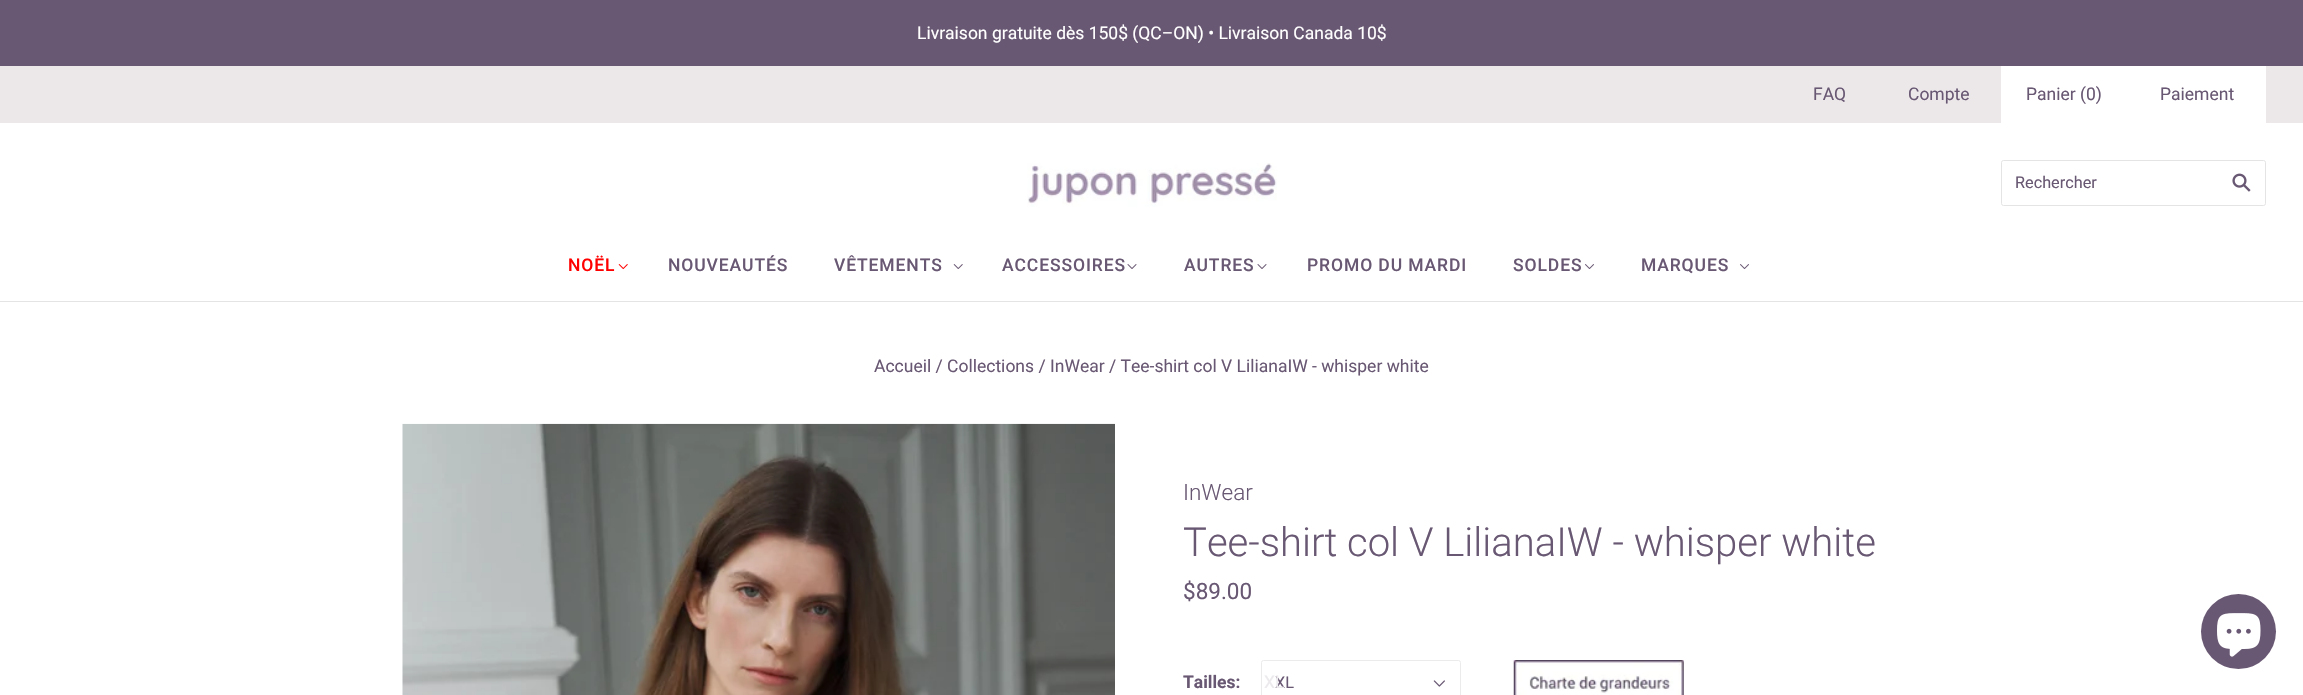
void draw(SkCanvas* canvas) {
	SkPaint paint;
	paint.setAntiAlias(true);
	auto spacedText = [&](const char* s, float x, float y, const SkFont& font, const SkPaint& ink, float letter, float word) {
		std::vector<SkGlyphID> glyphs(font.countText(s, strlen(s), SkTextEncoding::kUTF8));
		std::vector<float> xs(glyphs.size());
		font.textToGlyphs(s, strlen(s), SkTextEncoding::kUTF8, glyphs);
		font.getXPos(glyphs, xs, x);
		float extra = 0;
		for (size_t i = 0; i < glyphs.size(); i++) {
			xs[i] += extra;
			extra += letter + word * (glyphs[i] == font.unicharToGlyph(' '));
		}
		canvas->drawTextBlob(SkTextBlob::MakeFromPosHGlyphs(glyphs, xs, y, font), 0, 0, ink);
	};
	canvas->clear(0xffffffff);
	paint.setColor(0xff695873);
	canvas->drawRect(SkRect::MakeXYWH(0, 0, 2303, 66), paint);
	SkFont f1(fontMgr->matchFamilyStyle("Roboto", SkFontStyle::Normal()), 17.5);
	f1.setSubpixel(true);
	paint.setColor(0xffffffff);
	canvas->drawString("Livraison gratuite dès 150$ (QC–ON) • Livraison Canada 10$", 917, 39, f1, paint);
	paint.setColor(0xffe4e4e4);
	canvas->drawRect(SkRect::MakeXYWH(0, 301, 2303, 1), paint);
	paint.setColor(0xffece8ea);
	canvas->drawRect(SkRect::MakeXYWH(0, 66, 2303, 57), paint);
	paint.setColor(0xff695873);
	canvas->drawString("FAQ", 1813, 100, f1, paint);
	canvas->drawString("Compte", 1908, 100, f1, paint);
	paint.setColor(0xffffffff);
	canvas->drawRect(SkRect::MakeXYWH(2001, 66, 265, 57), paint);
	paint.setColor(0xff695873);
	canvas->drawString("Panier (0)", 2026, 100, f1, paint);
	canvas->drawString("Paiement", 2160, 100, f1, paint);
	canvas->drawImageRect(SkImages::DeferredFromEncodedData(SkData::MakeFromFileName("img1.png")), SkRect::MakeXYWH(1027, 163, 250, 44), SkSamplingOptions());
	paint.setStroke(true);
	paint.setStrokeWidth(1);
	paint.setColor(0xffe4e4e4);
	canvas->drawRoundRect(SkRect::MakeXYWH(2001.5, 160.5, 264, 45), 2, 2, paint);
	SkFont f2(fontMgr->matchFamilyStyle("Roboto", SkFontStyle::Normal()), 16.25);
	f2.setSubpixel(true);
	paint.setStroke(false);
	paint.setColor(0xff695873);
	canvas->drawString("Rechercher", 2015, 188, f2, paint);
	canvas->drawImageRect(SkImages::DeferredFromEncodedData(SkData::MakeFromFileName("img2.png")), SkRect::MakeXYWH(2232, 173, 19, 19), SkSamplingOptions());
	SkFont f3(fontMgr->matchFamilyStyle("Roboto", SkFontStyle(500, SkFontStyle::kNormal_Width, SkFontStyle::kUpright_Slant)), 17.5);
	f3.setSubpixel(true);
	paint.setColor(0xffff0000);
	spacedText("NOËL", 568, 271, f3, paint, 0.9, 0);
	canvas->drawImageRect(SkImages::DeferredFromEncodedData(SkData::MakeFromFileName("img3.png")), SkRect::MakeXYWH(618, 264, 10, 6), SkSamplingOptions());
	paint.setColor(0xff695873);
	spacedText("NOUVEAUTÉS", 668, 271, f3, paint, 0.9, 0);
	spacedText("VÊTEMENTS", 834, 271, f3, paint, 0.9, 0);
	canvas->drawImageRect(SkImages::DeferredFromEncodedData(SkData::MakeFromFileName("img4.png")), SkRect::MakeXYWH(953, 264, 10, 5), SkSamplingOptions());
	spacedText("ACCESSOIRES", 1002, 271, f3, paint, 0.9, 0);
	canvas->drawImageRect(SkImages::DeferredFromEncodedData(SkData::MakeFromFileName("img5.png")), SkRect::MakeXYWH(1127, 264, 10, 5), SkSamplingOptions());
	spacedText("AUTRES", 1184, 271, f3, paint, 0.9, 0);
	canvas->drawImageRect(SkImages::DeferredFromEncodedData(SkData::MakeFromFileName("img5.png")), SkRect::MakeXYWH(1257, 264, 10, 5), SkSamplingOptions());
	spacedText("PROMO DU MARDI", 1307, 271, f3, paint, 0.9, 0);
	spacedText("SOLDES", 1513, 271, f3, paint, 0.9, 0);
	canvas->drawImageRect(SkImages::DeferredFromEncodedData(SkData::MakeFromFileName("img6.png")), SkRect::MakeXYWH(1585, 264, 9, 5), SkSamplingOptions());
	spacedText("MARQUES", 1641, 271, f3, paint, 0.9, 0);
	canvas->drawImageRect(SkImages::DeferredFromEncodedData(SkData::MakeFromFileName("img6.png")), SkRect::MakeXYWH(1740, 264, 9, 5), SkSamplingOptions());
	canvas->drawString("Accueil / Collections / InWear / Tee-shirt col V LilianaIW - whisper white", 874, 372, f1, paint);
	canvas->drawImageRect(SkImages::DeferredFromEncodedData(SkData::MakeFromFileName("img7.png")), SkRect::MakeXYWH(402, 423, 713, 272), SkSamplingOptions());
	SkFont f4(fontMgr->matchFamilyStyle("Roboto", SkFontStyle(300, SkFontStyle::kNormal_Width, SkFontStyle::kUpright_Slant)), 22.5);
	f4.setSubpixel(true);
	canvas->drawString("InWear", 1183, 500, f4, paint);
	SkFont f5(fontMgr->matchFamilyStyle("Roboto", SkFontStyle(300, SkFontStyle::kNormal_Width, SkFontStyle::kUpright_Slant)), 40);
	f5.setSubpixel(true);
	canvas->drawString("Tee-shirt col V LilianaIW - whisper white", 1183, 556, f5, paint);
	SkFont f6(fontMgr->matchFamilyStyle("Roboto", SkFontStyle::Normal()), 22.5);
	f6.setSubpixel(true);
	canvas->drawString("$89.00", 1183, 599, f6, paint);
	SkFont f7(fontMgr->matchFamilyStyle("Roboto", SkFontStyle::Bold()), 17.5);
	f7.setSubpixel(true);
	canvas->drawString("Tailles:", 1183, 688, f7, paint);
	paint.setStroke(true);
	paint.setColor(0xffebebeb);
	canvas->drawRoundRect(SkRect::MakeXYWH(1261.5, 660.5, 199, 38), 2, 2, paint);
	paint.setStroke(false);
	paint.setColor(0xff695873);
	canvas->drawString("XL", 1275, 688, f2, paint);
	paint.setColor(0xffeceaed);
	canvas->drawString("XL", 1264, 688, f1, paint);
	canvas->drawImageRect(SkImages::DeferredFromEncodedData(SkData::MakeFromFileName("img8.png")), SkRect::MakeXYWH(1433, 680, 12, 7), SkSamplingOptions());
	canvas->drawImageRect(SkImages::DeferredFromEncodedData(SkData::MakeFromFileName("img9.png")), SkRect::MakeXYWH(1513, 660, 171, 35), SkSamplingOptions());
	paint.setColor(0xff695873);
	canvas->drawCircle(2238.5, 631.5, 37.5, paint);
	canvas->drawImageRect(SkImages::DeferredFromEncodedData(SkData::MakeFromFileName("img10.png")), SkRect::MakeXYWH(2217, 613, 44, 44), SkSamplingOptions());
}
